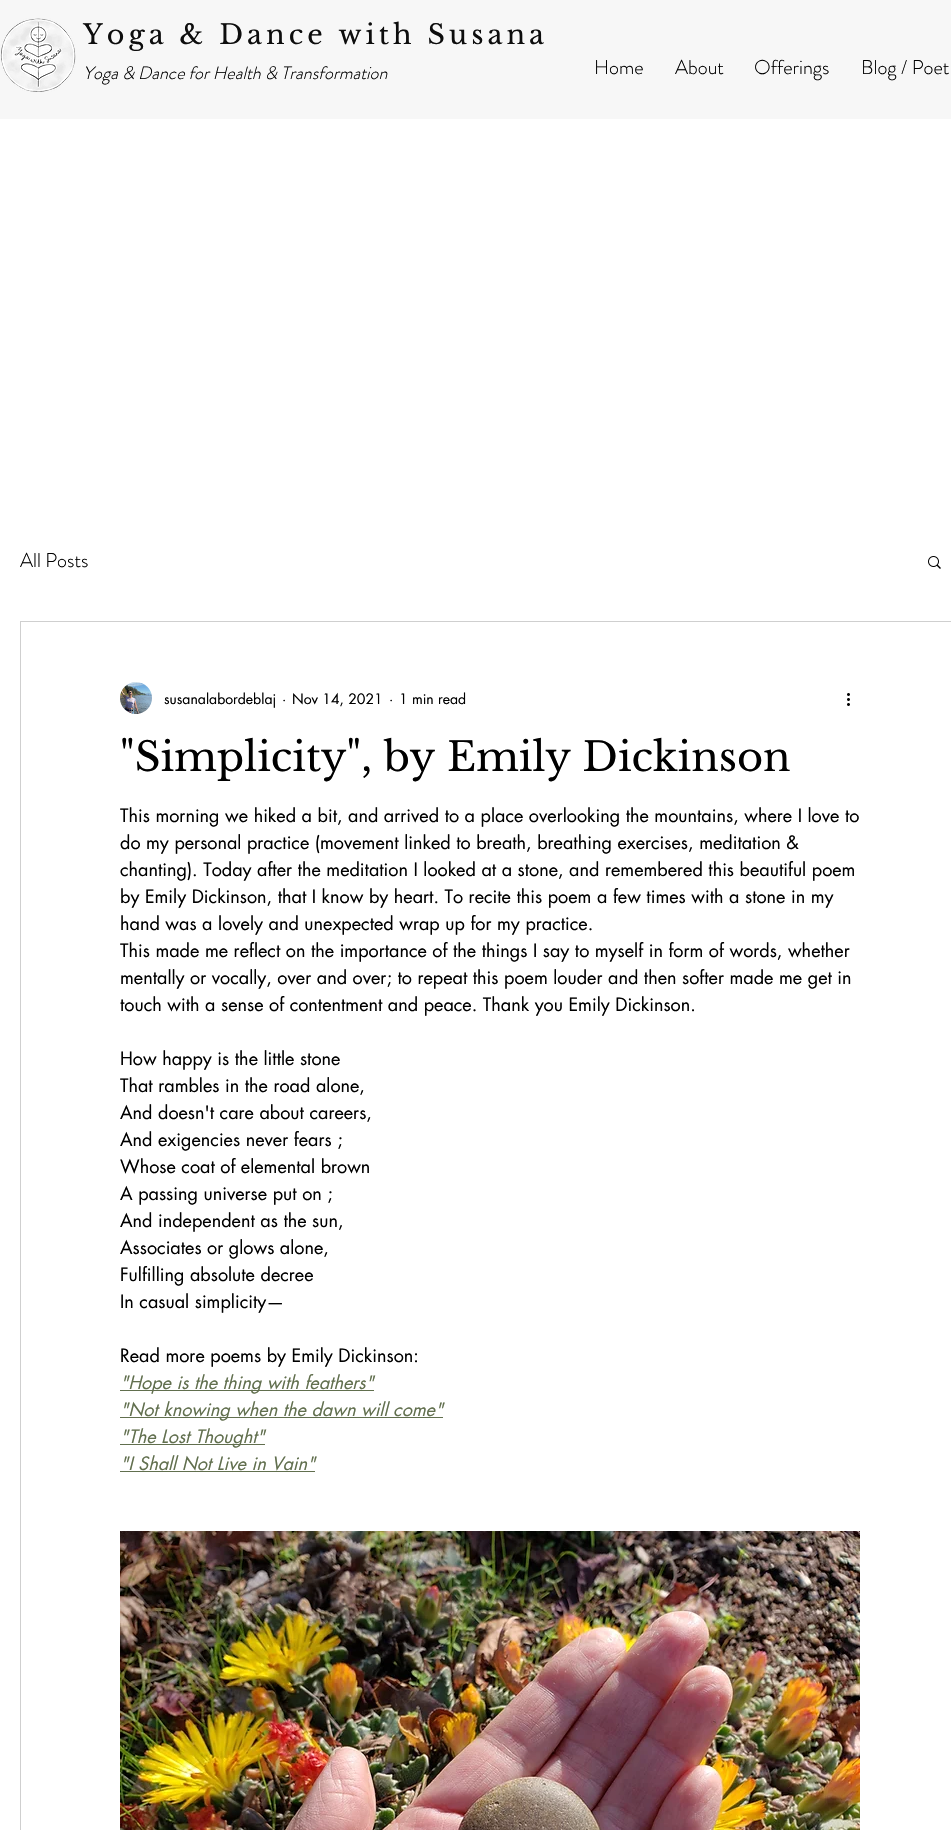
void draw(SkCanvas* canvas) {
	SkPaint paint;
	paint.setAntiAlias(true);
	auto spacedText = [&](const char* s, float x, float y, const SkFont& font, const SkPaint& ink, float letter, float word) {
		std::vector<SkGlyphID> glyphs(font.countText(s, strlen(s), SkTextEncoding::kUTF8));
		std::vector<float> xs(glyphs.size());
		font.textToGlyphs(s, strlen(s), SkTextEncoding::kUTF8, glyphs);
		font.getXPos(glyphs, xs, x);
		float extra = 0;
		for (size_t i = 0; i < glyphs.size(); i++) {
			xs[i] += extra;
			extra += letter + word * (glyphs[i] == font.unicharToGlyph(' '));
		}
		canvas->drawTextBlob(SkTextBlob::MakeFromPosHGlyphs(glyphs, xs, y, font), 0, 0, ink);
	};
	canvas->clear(0xffffffff);
	paint.setColor(0xfff7f7f7);
	canvas->drawRect(SkRect::MakeXYWH(0, 0, 951, 119), paint);
	canvas->drawImageRect(SkImages::DeferredFromEncodedData(SkData::MakeFromFileName("img1.png")), SkRect::MakeXYWH(0, 18, 76, 74), SkSamplingOptions());
	SkFont f1(fontMgr->matchFamilyStyle("Libre Baskerville", SkFontStyle::Normal()), 27);
	f1.setSubpixel(true);
	paint.setColor(0xff0d0d0d);
	spacedText("Yoga & Dance with Susana", 83, 44, f1, paint, 4.05, 0);
	SkFont f2(fontMgr->matchFamilyStyle("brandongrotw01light", SkFontStyle(300, SkFontStyle::kNormal_Width, SkFontStyle::kItalic_Slant)), 18);
	f2.setSubpixel(true);
	paint.setColor(0xff000000);
	canvas->drawString("Yoga & Dance for Health & Transformation", 83, 79, f2, paint);
	SkFont f3(fontMgr->matchFamilyStyle("brandongrotw01light", SkFontStyle(300, SkFontStyle::kNormal_Width, SkFontStyle::kUpright_Slant)), 20);
	f3.setSubpixel(true);
	canvas->drawString("Home", 594, 74, f3, paint);
	canvas->drawString("About", 675, 74, f3, paint);
	canvas->drawString("Offerings", 754, 74, f3, paint);
	canvas->drawString("Blog / Poet", 861, 74, f3, paint);
	canvas->drawString("All Posts", 20, 567, f3, paint);
	canvas->drawImageRect(SkImages::DeferredFromEncodedData(SkData::MakeFromFileName("img2.png")), SkRect::MakeXYWH(928, 556, 13, 13), SkSamplingOptions());
	paint.setStroke(true);
	paint.setStrokeWidth(1);
	paint.setColor(0xffcfcfcf);
	canvas->drawRect(SkRect::MakeXYWH(20.5, 621.5, 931, 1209), paint);
	canvas->drawImageRect(SkImages::DeferredFromEncodedData(SkData::MakeFromFileName("img3.png")), SkRect::MakeXYWH(120, 682, 32, 32), SkSamplingOptions());
	SkFont f4(fontMgr->matchFamilyStyle("futura", SkFontStyle::Normal()), 14);
	f4.setSubpixel(true);
	paint.setStroke(false);
	paint.setColor(0xff000000);
	canvas->drawString("susanalabordeblaj", 164, 704, f4, paint);
	canvas->drawString("·", 282, 704, f4, paint);
	canvas->drawString("Nov 14, 2021", 292, 704, f4, paint);
	canvas->drawString("·", 389, 704, f4, paint);
	canvas->drawString("1 min read", 399, 704, f4, paint);
	canvas->drawImageRect(SkImages::DeferredFromEncodedData(SkData::MakeFromFileName("img4.png")), SkRect::MakeXYWH(847, 693, 3, 13), SkSamplingOptions());
	SkFont f5(fontMgr->matchFamilyStyle("Libre Baskerville", SkFontStyle::Normal()), 40);
	f5.setSubpixel(true);
	canvas->drawString("\"Simplicity\", by Emily Dickinson", 120, 771, f5, paint);
	SkFont f6(fontMgr->matchFamilyStyle("futura", SkFontStyle::Normal()), 18);
	f6.setSubpixel(true);
	canvas->drawString("This morning we hiked a bit, and arrived to a place overlooking the mountains, where I love to", 120, 822, f6, paint);
	canvas->drawString("do my personal practice (movement linked to breath, breathing exercises, meditation &", 120, 849, f6, paint);
	canvas->drawString("chanting). Today after the meditation I looked at a stone, and remembered this beautiful poem", 120, 876, f6, paint);
	canvas->drawString("by Emily Dickinson, that I know by heart. To recite this poem a few times with a stone in my", 120, 903, f6, paint);
	canvas->drawString("hand was a lovely and unexpected wrap up for my practice.", 120, 930, f6, paint);
	canvas->drawString("This made me reflect on the importance of the things I say to myself in form of words, whether", 120, 957, f6, paint);
	canvas->drawString("mentally or vocally, over and over; to repeat this poem louder and then softer made me get in", 120, 984, f6, paint);
	canvas->drawString("touch with a sense of contentment and peace. Thank you Emily Dickinson.", 120, 1011, f6, paint);
	canvas->drawString("How happy is the little stone", 120, 1065, f6, paint);
	canvas->drawString("That rambles in the road alone,", 120, 1092, f6, paint);
	canvas->drawString("And doesn't care about careers,", 120, 1119, f6, paint);
	canvas->drawString("And exigencies never fears ;", 120, 1146, f6, paint);
	canvas->drawString("Whose coat of elemental brown", 120, 1173, f6, paint);
	canvas->drawString("A passing universe put on ;", 120, 1200, f6, paint);
	canvas->drawString("And independent as the sun,", 120, 1227, f6, paint);
	canvas->drawString("Associates or glows alone,", 120, 1254, f6, paint);
	canvas->drawString("Fulfilling absolute decree", 120, 1281, f6, paint);
	canvas->drawString("In casual simplicity—", 120, 1308, f6, paint);
	canvas->drawString("Read more poems by Emily Dickinson:", 120, 1362, f6, paint);
	paint.setColor(0xff616f4e);
	canvas->drawRect(SkRect::MakeXYWH(120, 1390, 254, 1), paint);
	SkFont f7(fontMgr->matchFamilyStyle("futura", SkFontStyle::Italic()), 18);
	f7.setSubpixel(true);
	canvas->drawString("\"Hope is the thing with feathers\"", 120, 1389, f7, paint);
	canvas->drawRect(SkRect::MakeXYWH(120, 1417, 323, 1), paint);
	canvas->drawString("\"Not knowing when the dawn will come\"", 120, 1416, f7, paint);
	canvas->drawRect(SkRect::MakeXYWH(120, 1444, 145, 1), paint);
	canvas->drawString("\"The Lost Thought\"", 120, 1443, f7, paint);
	canvas->drawString("\"I Shall Not Live in Vain\"", 120, 1470, f7, paint);
	canvas->drawRect(SkRect::MakeXYWH(120, 1471, 195, 1), paint);
	canvas->drawImageRect(SkImages::DeferredFromEncodedData(SkData::MakeFromFileName("img5.png")), SkRect::MakeXYWH(120, 1531, 740, 299), SkSamplingOptions());
}
